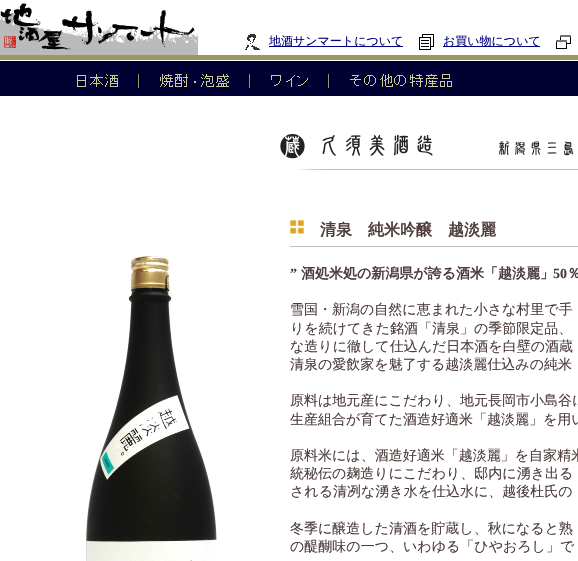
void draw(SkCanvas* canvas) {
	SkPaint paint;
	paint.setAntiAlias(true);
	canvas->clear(0xffffffff);
	canvas->drawImageRect(SkImages::DeferredFromEncodedData(SkData::MakeFromFileName("img1.png")), SkRect::MakeXYWH(0, 3, 198, 52), SkSamplingOptions());
	canvas->drawImageRect(SkImages::DeferredFromEncodedData(SkData::MakeFromFileName("img2.png")), SkRect::MakeXYWH(245, 34, 15, 16), SkSamplingOptions());
	paint.setColor(0xff000080);
	canvas->drawRect(SkRect::MakeXYWH(269, 46, 134, 1), paint);
	SkFont f1(fontMgr->matchFamilyStyle("WenQuanYi Zen Hei", SkFontStyle(500, SkFontStyle::kNormal_Width, SkFontStyle::kUpright_Slant)), 12);
	f1.setSubpixel(true);
	canvas->drawString("地酒サンマートについて", 269, 45, f1, paint);
	canvas->drawImageRect(SkImages::DeferredFromEncodedData(SkData::MakeFromFileName("img3.png")), SkRect::MakeXYWH(419, 34, 15, 16), SkSamplingOptions());
	canvas->drawRect(SkRect::MakeXYWH(443, 46, 97, 1), paint);
	canvas->drawString("お買い物について", 443, 45, f1, paint);
	canvas->drawImageRect(SkImages::DeferredFromEncodedData(SkData::MakeFromFileName("img4.png")), SkRect::MakeXYWH(556, 35, 15, 14), SkSamplingOptions());
	paint.setColor(0xff000033);
	canvas->drawRect(SkRect::MakeXYWH(0, 61, 578, 35), paint);
	paint.setColor(0xff999966);
	canvas->drawRect(SkRect::MakeXYWH(0, 55, 578, 5), paint);
	canvas->drawImageRect(SkImages::DeferredFromEncodedData(SkData::MakeFromFileName("img5.png")), SkRect::MakeXYWH(77, 74, 63, 14), SkSamplingOptions());
	canvas->drawImageRect(SkImages::DeferredFromEncodedData(SkData::MakeFromFileName("img6.png")), SkRect::MakeXYWH(160, 74, 91, 14), SkSamplingOptions());
	canvas->drawImageRect(SkImages::DeferredFromEncodedData(SkData::MakeFromFileName("img7.png")), SkRect::MakeXYWH(271, 74, 59, 14), SkSamplingOptions());
	canvas->drawImageRect(SkImages::DeferredFromEncodedData(SkData::MakeFromFileName("img8.png")), SkRect::MakeXYWH(350, 74, 102, 13), SkSamplingOptions());
	canvas->drawImageRect(SkImages::DeferredFromEncodedData(SkData::MakeFromFileName("img9.png")), SkRect::MakeXYWH(280, 134, 294, 25), SkSamplingOptions());
	canvas->drawImageRect(SkImages::DeferredFromEncodedData(SkData::MakeFromFileName("img10.png")), SkRect::MakeXYWH(297, 169, 281, 1), SkSamplingOptions());
	canvas->drawImageRect(SkImages::DeferredFromEncodedData(SkData::MakeFromFileName("img11.png")), SkRect::MakeXYWH(82, 255, 135, 306), SkSamplingOptions());
	canvas->drawImageRect(SkImages::DeferredFromEncodedData(SkData::MakeFromFileName("img12.png")), SkRect::MakeXYWH(290, 220, 14, 14), SkSamplingOptions());
	SkFont f2(fontMgr->matchFamilyStyle("WenQuanYi Zen Hei", SkFontStyle::Bold()), 16);
	f2.setSubpixel(true);
	paint.setColor(0xff4e3d3d);
	canvas->drawString("清泉　純米吟醸　越淡麗", 320, 235, f2, paint);
	paint.setColor(0xffc0c0c0);
	canvas->drawRect(SkRect::MakeXYWH(290, 246, 288, 1), paint);
	SkFont f3(fontMgr->matchFamilyStyle("Liberation Serif", SkFontStyle::Bold()), 14);
	f3.setSubpixel(true);
	paint.setColor(0xff4e3d3d);
	canvas->drawString("”", 290, 278, f3, paint);
	SkFont f4(fontMgr->matchFamilyStyle("WenQuanYi Zen Hei", SkFontStyle::Bold()), 14);
	f4.setSubpixel(true);
	canvas->drawString("酒処米処の新潟県が誇る酒米「越淡麗」", 301, 278, f4, paint);
	canvas->drawString("50", 553, 278, f3, paint);
	canvas->drawString("％", 567, 278, f4, paint);
	SkFont f5(fontMgr->matchFamilyStyle("WenQuanYi Zen Hei", SkFontStyle(500, SkFontStyle::kNormal_Width, SkFontStyle::kUpright_Slant)), 14);
	f5.setSubpixel(true);
	canvas->drawString("雪国・新潟の自然に恵まれた小さな村里で手", 290, 314, f5, paint);
	canvas->drawString("りを続けてきた銘酒「清泉」の季節限定品、", 290, 333, f5, paint);
	canvas->drawString("な造りに徹して仕込んだ日本酒を白壁の酒蔵", 290, 351, f5, paint);
	canvas->drawString("清泉の愛飲家を魅了する越淡麗仕込みの純米", 290, 369, f5, paint);
	canvas->drawString("原料は地元産にこだわり、地元長岡市小島谷に", 290, 405, f5, paint);
	canvas->drawString("生産組合が育てた酒造好適米「越淡麗」を用い", 290, 424, f5, paint);
	canvas->drawString("原料米には、酒造好適米「越淡麗」を自家精米", 290, 460, f5, paint);
	canvas->drawString("統秘伝の麹造りにこだわり、邸内に湧き出る", 290, 478, f5, paint);
	canvas->drawString("される清冽な湧き水を仕込水に、越後杜氏の", 290, 496, f5, paint);
	canvas->drawString("冬季に醸造した清酒を貯蔵し、秋になると熟", 290, 533, f5, paint);
	canvas->drawString("の醍醐味の一つ、いわゆる「ひやおろし」で", 290, 551, f5, paint);
}
